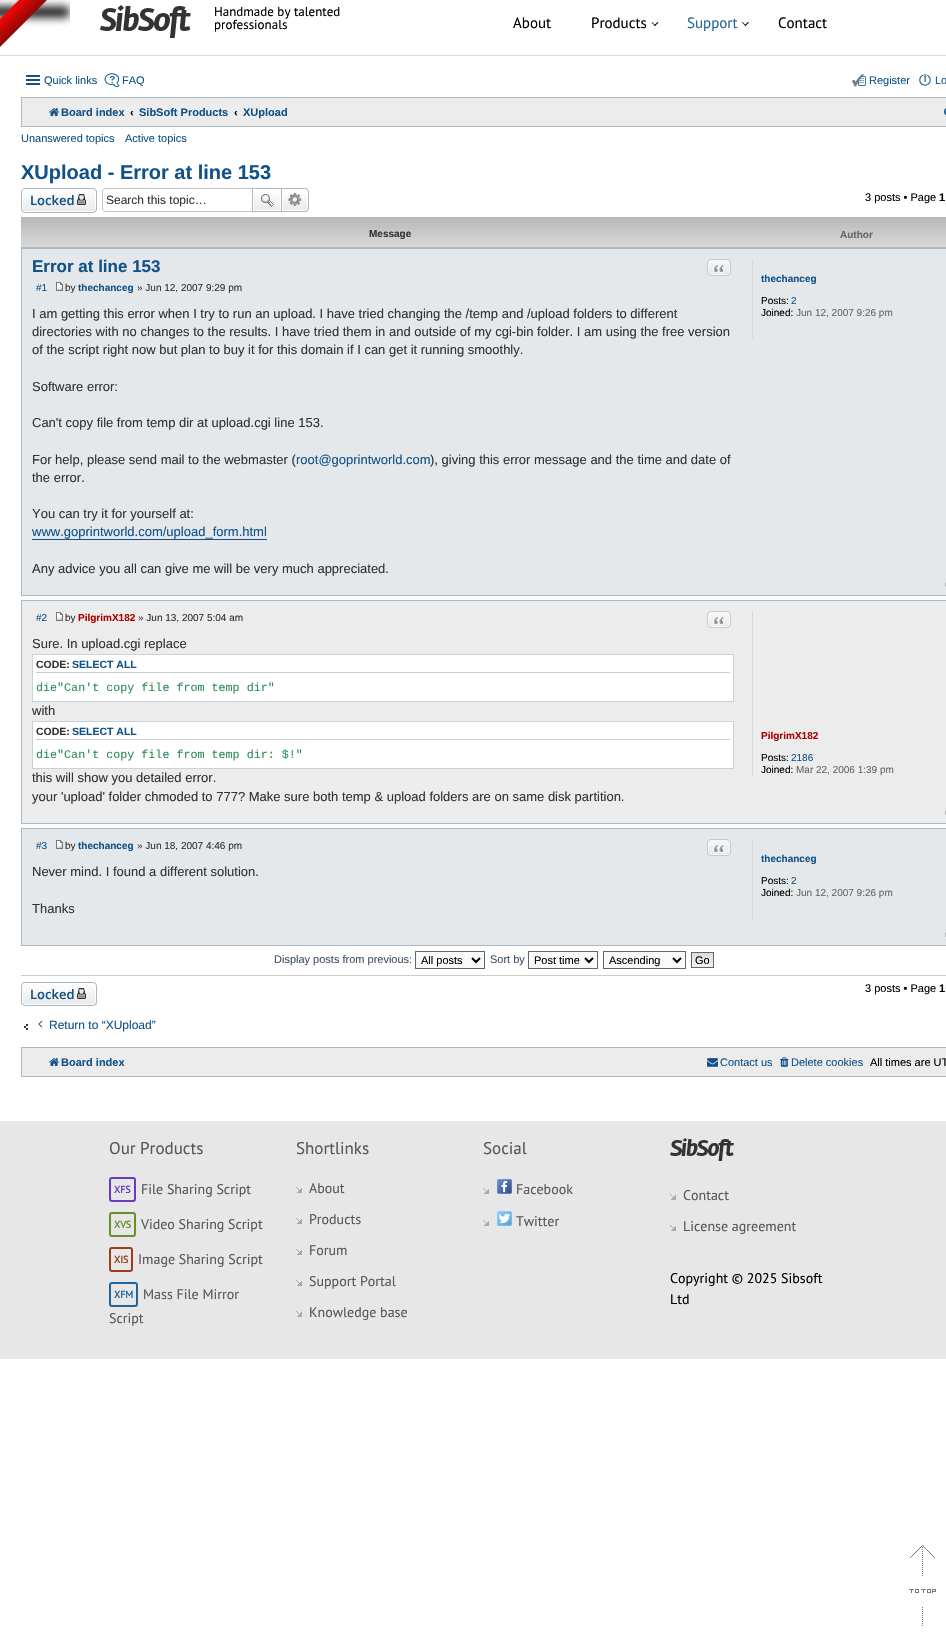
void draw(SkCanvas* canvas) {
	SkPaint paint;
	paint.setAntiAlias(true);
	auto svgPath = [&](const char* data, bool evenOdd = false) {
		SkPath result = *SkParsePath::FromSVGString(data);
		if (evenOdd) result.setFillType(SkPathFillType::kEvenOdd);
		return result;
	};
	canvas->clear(0xffffffff);
	paint.setColor(0xffdadada);
	canvas->drawRect(SkRect::MakeXYWH(0, 55, 946, 1), paint);
	canvas->save();
	canvas->clipRect(SkRect::MakeXYWH(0, 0, 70, 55));
	paint.setColor(0xff000000);
	paint.setMaskFilter(SkMaskFilter::MakeBlur(kNormal_SkBlurStyle, 5));
	canvas->drawRect(SkRect::MakeXYWH(-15, 7, 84, 10), paint);
	paint.setMaskFilter(nullptr);
	canvas->restore();
	{
		const SkColor colors[] = {0xfff70505, 0xff8f0808};
		const float stops[] = {0, 1};
		const SkPoint ends[] = {{17, 1.9}, {31, 16}};
		paint.setShader(SkGradientShader::MakeLinear(ends, colors, stops, 2, SkTileMode::kClamp));
		paint.setAlpha(255);
	}
	canvas->drawPath(svgPath("M-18 37L52-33L66-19L-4 51Z"), paint);
	canvas->drawImageRect(SkImages::DeferredFromEncodedData(SkData::MakeFromFileName("img1.png")), SkRect::MakeXYWH(99, 5, 92, 33), SkSamplingOptions());
	SkFont f1(fontMgr->matchFamilyStyle("PT Sans", SkFontStyle::Normal()), 13);
	f1.setSubpixel(true);
	paint.setShader(nullptr);
	paint.setColor(0xff000000);
	canvas->drawString("Handmade by talented", 214, 16, f1, paint);
	canvas->drawString("professionals", 214, 29, f1, paint);
	SkFont f2(fontMgr->matchFamilyStyle("PT Sans", SkFontStyle::Normal()), 15);
	f2.setSubpixel(true);
	canvas->drawString("About", 513, 28, f2, paint);
	canvas->drawString("Products", 591, 28, f2, paint);
	canvas->drawPath(svgPath("M657.5 22L658.5 22.5L655 26L654 25.5Z"), paint);
	canvas->drawPath(svgPath("M652 22L655.5 25.5L655 26L651.5 22.5Z"), paint);
	paint.setColor(0xff20659c);
	canvas->drawString("Support", 687, 28, f2, paint);
	paint.setColor(0xff000000);
	canvas->drawPath(svgPath("M748 22L749 22.5L745.5 26L744.5 25.5Z"), paint);
	canvas->drawPath(svgPath("M742.5 22L746 25.5L745.5 26L742 22.5Z"), paint);
	canvas->drawString("Contact", 778, 28, f2, paint);
	paint.setColor(0xff105289);
	canvas->drawRect(SkRect::MakeXYWH(26, 75, 14, 2), paint);
	canvas->drawRect(SkRect::MakeXYWH(26, 79, 14, 2), paint);
	canvas->drawRect(SkRect::MakeXYWH(26, 83, 14, 2), paint);
	SkFont f3(fontMgr->matchFamilyStyle("Liberation Sans", SkFontStyle::Normal()), 11);
	f3.setSubpixel(true);
	canvas->drawString("Quick links", 44, 84, f3, paint);
	canvas->drawImageRect(SkImages::DeferredFromEncodedData(SkData::MakeFromFileName("img2.png")), SkRect::MakeXYWH(104, 73, 16, 14), SkSamplingOptions());
	canvas->drawString("FAQ", 122, 84, f3, paint);
	canvas->drawImageRect(SkImages::DeferredFromEncodedData(SkData::MakeFromFileName("img3.png")), SkRect::MakeXYWH(852, 74, 14, 13), SkSamplingOptions());
	canvas->drawString("Register", 869, 84, f3, paint);
	canvas->drawImageRect(SkImages::DeferredFromEncodedData(SkData::MakeFromFileName("img4.png")), SkRect::MakeXYWH(919, 74, 12, 12), SkSamplingOptions());
	canvas->drawString("Lo", 935, 84, f3, paint);
	paint.setColor(0xffececec);
	canvas->drawRect(SkRect::MakeXYWH(21.5, 97.5, 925, 29), paint);
	paint.setStroke(true);
	paint.setStrokeWidth(1);
	paint.setColor(0xffa9b8c2);
	canvas->drawRect(SkRect::MakeXYWH(21.5, 97.5, 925, 29), paint);
	canvas->drawImageRect(SkImages::DeferredFromEncodedData(SkData::MakeFromFileName("img5.png")), SkRect::MakeXYWH(49, 108, 10, 8), SkSamplingOptions());
	SkFont f4(fontMgr->matchFamilyStyle("Liberation Sans", SkFontStyle::Bold()), 11);
	f4.setSubpixel(true);
	paint.setStroke(false);
	paint.setColor(0xff105289);
	canvas->drawString("Board index", 61, 116, f4, paint);
	paint.setColor(0xff000000);
	canvas->drawString("‹", 130, 116, f4, paint);
	paint.setColor(0xff105289);
	canvas->drawString("SibSoft Products", 139, 116, f4, paint);
	paint.setColor(0xff000000);
	canvas->drawString("‹", 234, 116, f4, paint);
	paint.setColor(0xff105289);
	canvas->drawString("XUpload", 243, 116, f4, paint);
	paint.setColor(0xffc8dbea);
	canvas->drawRect(SkRect::MakeXYWH(945, 111, 1, 1), paint);
	canvas->drawImageRect(SkImages::DeferredFromEncodedData(SkData::MakeFromFileName("img6.png")), SkRect::MakeXYWH(944, 108, 2, 8), SkSamplingOptions());
	paint.setColor(0xff105289);
	canvas->drawString("Unanswered topics", 21, 142, f3, paint);
	canvas->drawString("Active topics", 125, 142, f3, paint);
	SkFont f5(fontMgr->matchFamilyStyle("Liberation Sans", SkFontStyle::Bold()), 20);
	f5.setSubpixel(true);
	canvas->drawString("XUpload - Error at line 153", 21, 179, f5, paint);
	canvas->save();
	canvas->clipPath(svgPath("M25 188H93C95 188 97 190 97 192V209C97 211 95 213 93 213H25C23 213 21 211 21 209V192C21 190 23 188 25 188Z"), true);
	{
		const SkColor colors[] = {0xffffffff, 0xffe9e9e9};
		const float stops[] = {0, 1};
		const SkPoint ends[] = {{59, 189}, {59, 212}};
		paint.setShader(SkGradientShader::MakeLinear(ends, colors, stops, 2, SkTileMode::kClamp));
		paint.setAlpha(255);
	}
	canvas->drawRect(SkRect::MakeXYWH(21, 189, 76, 23), paint);
	canvas->restore();
	paint.setStroke(true);
	paint.setShader(nullptr);
	paint.setColor(0xffffffff);
	canvas->drawRoundRect(SkRect::MakeXYWH(22.5, 189.5, 73, 22), 2.5, 2.5, paint);
	paint.setColor(0xffa9b8c2);
	canvas->drawRoundRect(SkRect::MakeXYWH(21.5, 188.5, 75, 24), 3.5, 3.5, paint);
	SkFont f6(fontMgr->matchFamilyStyle("Open Sans", SkFontStyle(600, SkFontStyle::kNormal_Width, SkFontStyle::kUpright_Slant)), 13);
	f6.setSubpixel(true);
	paint.setStroke(false);
	paint.setColor(0xff105289);
	canvas->drawString("Locked", 30, 205, f6, paint);
	canvas->drawImageRect(SkImages::DeferredFromEncodedData(SkData::MakeFromFileName("img7.png")), SkRect::MakeXYWH(77, 194, 9, 11), SkSamplingOptions());
	paint.setColor(0xffc7c3bf);
	canvas->drawPath(svgPath("M106 188H252V212H106C104 212 102 210 102 208V192C102 190 104 188 106 188ZM106 189H252V211H106C104 211 103 210 103 208V192C103 190 104 189 106 189Z", true), paint);
	SkFont f7(fontMgr->matchFamilyStyle("Liberation Sans", SkFontStyle::Normal()), 12);
	f7.setSubpixel(true);
	paint.setColor(0xff333333);
	canvas->drawString("Search this topic…", 106, 204, f7, paint);
	{
		const SkColor colors[] = {0xffffffff, 0xffe9e9e9};
		const float stops[] = {0, 1};
		const SkPoint ends[] = {{267, 189}, {267, 211}};
		paint.setShader(SkGradientShader::MakeLinear(ends, colors, stops, 2, SkTileMode::kClamp));
		paint.setAlpha(255);
	}
	canvas->drawRect(SkRect::MakeXYWH(254, 192, 26, 18), paint);
	paint.setStroke(true);
	paint.setShader(nullptr);
	paint.setColor(0xffa9b8c2);
	canvas->drawRect(SkRect::MakeXYWH(252.5, 188.5, 29, 23), paint);
	canvas->drawImageRect(SkImages::DeferredFromEncodedData(SkData::MakeFromFileName("img8.png")), SkRect::MakeXYWH(261, 194, 13, 13), SkSamplingOptions());
	paint.setStroke(false);
	{
		const SkColor colors[] = {0xffffffff, 0xffe9e9e9};
		const float stops[] = {0, 1};
		const SkPoint ends[] = {{295, 189}, {295, 211}};
		paint.setShader(SkGradientShader::MakeLinear(ends, colors, stops, 2, SkTileMode::kClamp));
		paint.setAlpha(255);
	}
	canvas->drawPath(svgPath("M282.5 189.5H305C306.5 189.5 307.5 190.5 307.5 192V208C307.5 209.5 306.5 210.5 305 210.5H282.5Z"), paint);
	paint.setStroke(true);
	paint.setShader(nullptr);
	paint.setColor(0xffffffff);
	canvas->drawPath(svgPath("M282.5 189.5H305C306.5 189.5 307.5 190.5 307.5 192V208C307.5 209.5 306.5 210.5 305 210.5H282.5Z"), paint);
	paint.setStroke(false);
	paint.setColor(0xffa9b8c2);
	canvas->drawPath(svgPath("M282 188H305C307 188 309 190 309 192V208C309 210 307 212 305 212H282ZM282 189H305C306.5 189 308 190.5 308 192V208C308 209.5 306.5 211 305 211H282Z", true), paint);
	canvas->drawImageRect(SkImages::DeferredFromEncodedData(SkData::MakeFromFileName("img9.png")), SkRect::MakeXYWH(288, 193, 14, 13), SkSamplingOptions());
	paint.setColor(0xff000000);
	canvas->drawString("3 posts • Page", 865, 201, f3, paint);
	canvas->drawString("1", 939, 201, f4, paint);
	canvas->drawImageRect(SkImages::DeferredFromEncodedData(SkData::MakeFromFileName("img10.png")), SkRect::MakeXYWH(21, 217, 925, 31), SkSamplingOptions());
	SkFont f8(fontMgr->matchFamilyStyle("Liberation Sans", SkFontStyle::Bold()), 10);
	f8.setSubpixel(true);
	paint.setColor(0xff333333);
	canvas->drawString("Message", 369, 237, f8, paint);
	paint.setColor(0xff666666);
	canvas->drawString("Author", 840, 238, f8, paint);
	paint.setColor(0xffe5e8ea);
	canvas->drawRect(SkRect::MakeXYWH(21.5, 248.5, 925, 347), paint);
	paint.setStroke(true);
	paint.setColor(0xffa9b8c2);
	canvas->drawRect(SkRect::MakeXYWH(21.5, 248.5, 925, 347), paint);
	SkFont f9(fontMgr->matchFamilyStyle("Liberation Sans", SkFontStyle::Bold()), 17);
	f9.setSubpixel(true);
	paint.setStroke(false);
	paint.setColor(0xff105289);
	canvas->drawString("Error at line 153", 32, 272, f9, paint);
	canvas->save();
	canvas->clipPath(svgPath("M711 259H727C729 259 731 261 731 263V272C731 274 729 276 727 276H711C709 276 707 274 707 272V263C707 261 709 259 711 259Z"), true);
	{
		const SkColor colors[] = {0xfff5f6f7, 0xffe7e9e9};
		const float stops[] = {0, 1};
		const SkPoint ends[] = {{719, 260}, {719, 275}};
		paint.setShader(SkGradientShader::MakeLinear(ends, colors, stops, 2, SkTileMode::kClamp));
		paint.setAlpha(255);
	}
	canvas->drawRect(SkRect::MakeXYWH(707, 260, 24, 15), paint);
	canvas->restore();
	paint.setStroke(true);
	paint.setShader(nullptr);
	paint.setColor(0xfff5f6f7);
	canvas->drawRoundRect(SkRect::MakeXYWH(708.5, 260.5, 21, 14), 2.5, 2.5, paint);
	paint.setColor(0xffc1cbd2);
	canvas->drawRoundRect(SkRect::MakeXYWH(707.5, 259.5, 23, 16), 3.5, 3.5, paint);
	canvas->drawImageRect(SkImages::DeferredFromEncodedData(SkData::MakeFromFileName("img11.png")), SkRect::MakeXYWH(713, 264, 11, 9), SkSamplingOptions());
	SkFont f10(fontMgr->matchFamilyStyle("Liberation Sans", SkFontStyle::Normal()), 10);
	f10.setSubpixel(true);
	paint.setStroke(false);
	paint.setColor(0xff105289);
	canvas->drawString("#1", 36, 291, f10, paint);
	canvas->drawImageRect(SkImages::DeferredFromEncodedData(SkData::MakeFromFileName("img12.png")), SkRect::MakeXYWH(56, 282, 7, 9), SkSamplingOptions());
	paint.setColor(0xff333333);
	canvas->drawString("by", 65, 291, f10, paint);
	paint.setColor(0xff105289);
	canvas->drawString("thechanceg", 78, 291, f8, paint);
	paint.setColor(0xff333333);
	canvas->drawString("» Jun 12, 2007 9:29 pm", 137, 291, f10, paint);
	SkFont f11(fontMgr->matchFamilyStyle("Liberation Sans", SkFontStyle::Normal()), 13);
	f11.setSubpixel(true);
	canvas->drawString("I am getting this error when I try to run an upload. I have tried changing the /temp and /upload folders to different", 32, 318, f11, paint);
	canvas->drawString("directories with no changes to the results. I have tried them in and outside of my cgi-bin folder. I am using the free version", 32, 336, f11, paint);
	canvas->drawString("of the script right now but plan to buy it for this domain if I can get it running smoothly.", 32, 354, f11, paint);
	canvas->drawString("Software error:", 32, 391, f11, paint);
	canvas->drawString("Can't copy file from temp dir at upload.cgi line 153.", 32, 427, f11, paint);
	canvas->drawString("For help, please send mail to the webmaster (", 32, 464, f11, paint);
	paint.setColor(0xff105289);
	canvas->drawString("root@goprintworld.com", 296, 464, f11, paint);
	paint.setColor(0xff333333);
	canvas->drawString("), giving this error message and the time and date of", 430, 464, f11, paint);
	canvas->drawString("the error.", 32, 482, f11, paint);
	canvas->drawString("You can try it for yourself at:", 32, 518, f11, paint);
	paint.setColor(0xff105289);
	canvas->drawString("www.goprintworld.com/upload_form.html", 32, 536, f11, paint);
	canvas->drawRect(SkRect::MakeXYWH(32, 539, 235, 1), paint);
	paint.setColor(0xff333333);
	canvas->drawString("Any advice you all can give me will be very much appreciated.", 32, 573, f11, paint);
	paint.setColor(0xffd5dbe0);
	canvas->drawRect(SkRect::MakeXYWH(752, 259, 1, 80), paint);
	paint.setColor(0xff105289);
	canvas->drawString("thechanceg", 761, 282, f8, paint);
	paint.setColor(0xff000000);
	canvas->drawString("Posts:", 761, 304, f10, paint);
	paint.setColor(0xff105289);
	canvas->drawString("2", 791, 304, f10, paint);
	paint.setColor(0xff000000);
	canvas->drawString("Joined:", 761, 316, f10, paint);
	paint.setColor(0xff666666);
	canvas->drawString("Jun 12, 2007 9:26 pm", 796, 316, f10, paint);
	canvas->drawImageRect(SkImages::DeferredFromEncodedData(SkData::MakeFromFileName("img13.png")), SkRect::MakeXYWH(945, 581, 1, 7), SkSamplingOptions());
	paint.setColor(0xffececec);
	canvas->drawRect(SkRect::MakeXYWH(21.5, 600.5, 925, 223), paint);
	paint.setStroke(true);
	paint.setColor(0xffa9b8c2);
	canvas->drawRect(SkRect::MakeXYWH(21.5, 600.5, 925, 223), paint);
	paint.setStroke(false);
	paint.setColor(0xff105289);
	canvas->drawString("#2", 36, 621, f10, paint);
	canvas->drawImageRect(SkImages::DeferredFromEncodedData(SkData::MakeFromFileName("img14.png")), SkRect::MakeXYWH(56, 612, 7, 9), SkSamplingOptions());
	paint.setColor(0xff333333);
	canvas->drawString("by", 65, 621, f10, paint);
	paint.setColor(0xffaa0000);
	canvas->drawString("PilgrimX182", 78, 621, f8, paint);
	paint.setColor(0xff333333);
	canvas->drawString("» Jun 13, 2007 5:04 am", 138, 621, f10, paint);
	canvas->save();
	canvas->clipPath(svgPath("M711 611H727C729 611 731 613 731 615V624C731 626 729 628 727 628H711C709 628 707 626 707 624V615C707 613 709 611 711 611Z"), true);
	{
		const SkColor colors[] = {0xfff7f7f7, 0xffeaeaea};
		const float stops[] = {0, 1};
		const SkPoint ends[] = {{719, 612}, {719, 627}};
		paint.setShader(SkGradientShader::MakeLinear(ends, colors, stops, 2, SkTileMode::kClamp));
		paint.setAlpha(255);
	}
	canvas->drawRect(SkRect::MakeXYWH(707, 612, 24, 15), paint);
	canvas->restore();
	paint.setStroke(true);
	paint.setShader(nullptr);
	paint.setColor(0xfff7f7f7);
	canvas->drawRoundRect(SkRect::MakeXYWH(708.5, 612.5, 21, 14), 2.5, 2.5, paint);
	paint.setColor(0xffc4cdd3);
	canvas->drawRoundRect(SkRect::MakeXYWH(707.5, 611.5, 23, 16), 3.5, 3.5, paint);
	canvas->drawImageRect(SkImages::DeferredFromEncodedData(SkData::MakeFromFileName("img15.png")), SkRect::MakeXYWH(713, 616, 11, 9), SkSamplingOptions());
	paint.setStroke(false);
	paint.setColor(0xff333333);
	canvas->drawString("Sure. In upload.cgi replace", 32, 648, f11, paint);
	paint.setColor(0xffffffff);
	canvas->drawRect(SkRect::MakeXYWH(32.5, 654.5, 701, 47), paint);
	paint.setStroke(true);
	paint.setColor(0xffc9d2d8);
	canvas->drawRect(SkRect::MakeXYWH(32.5, 654.5, 701, 47), paint);
	paint.setStroke(false);
	paint.setColor(0xffcccccc);
	canvas->drawRect(SkRect::MakeXYWH(36, 672, 694, 1), paint);
	SkFont f12(fontMgr->matchFamilyStyle("Liberation Sans", SkFontStyle::Bold()), 10.5);
	f12.setSubpixel(true);
	paint.setColor(0xff333333);
	canvas->drawString("CODE:", 36, 668, f12, paint);
	paint.setColor(0xff105289);
	canvas->drawString("SELECT ALL", 72, 668, f12, paint);
	SkFont f13(fontMgr->matchFamilyStyle("Liberation Mono", SkFontStyle::Normal()), 11.7);
	f13.setSubpixel(true);
	paint.setColor(0xff2e8b57);
	canvas->drawString("die\"Can't copy file from temp dir\"", 36, 691, f13, paint);
	paint.setColor(0xff333333);
	canvas->drawString("with", 32, 715, f11, paint);
	paint.setColor(0xffffffff);
	canvas->drawRect(SkRect::MakeXYWH(32.5, 721.5, 701, 47), paint);
	paint.setStroke(true);
	paint.setColor(0xffc9d2d8);
	canvas->drawRect(SkRect::MakeXYWH(32.5, 721.5, 701, 47), paint);
	paint.setStroke(false);
	paint.setColor(0xffcccccc);
	canvas->drawRect(SkRect::MakeXYWH(36, 739, 694, 1), paint);
	paint.setColor(0xff333333);
	canvas->drawString("CODE:", 36, 735, f12, paint);
	paint.setColor(0xff105289);
	canvas->drawString("SELECT ALL", 72, 735, f12, paint);
	paint.setColor(0xff2e8b57);
	canvas->drawString("die\"Can't copy file from temp dir: $!\"", 36, 758, f13, paint);
	paint.setColor(0xff333333);
	canvas->drawString("this will show you detailed error.", 32, 782, f11, paint);
	canvas->drawString("your 'upload' folder chmoded to 777? Make sure both temp & upload folders are on same disk partition.", 32, 801, f11, paint);
	paint.setColor(0xffd5dbe0);
	canvas->drawRect(SkRect::MakeXYWH(752, 611, 1, 165), paint);
	paint.setColor(0xffaa0000);
	canvas->drawString("PilgrimX182", 761, 739, f8, paint);
	paint.setColor(0xff000000);
	canvas->drawString("Posts:", 761, 761, f10, paint);
	paint.setColor(0xff105289);
	canvas->drawString("2186", 791, 761, f10, paint);
	paint.setColor(0xff000000);
	canvas->drawString("Joined:", 761, 773, f10, paint);
	paint.setColor(0xff666666);
	canvas->drawString("Mar 22, 2006 1:39 pm", 796, 773, f10, paint);
	canvas->drawImageRect(SkImages::DeferredFromEncodedData(SkData::MakeFromFileName("img13.png")), SkRect::MakeXYWH(945, 809, 1, 7), SkSamplingOptions());
	paint.setColor(0xffe5e8ea);
	canvas->drawRect(SkRect::MakeXYWH(21.5, 828.5, 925, 117), paint);
	paint.setStroke(true);
	paint.setColor(0xffa9b8c2);
	canvas->drawRect(SkRect::MakeXYWH(21.5, 828.5, 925, 117), paint);
	paint.setStroke(false);
	paint.setColor(0xff105289);
	canvas->drawString("#3", 36, 849, f10, paint);
	canvas->drawImageRect(SkImages::DeferredFromEncodedData(SkData::MakeFromFileName("img12.png")), SkRect::MakeXYWH(56, 840, 7, 9), SkSamplingOptions());
	paint.setColor(0xff333333);
	canvas->drawString("by", 65, 849, f10, paint);
	paint.setColor(0xff105289);
	canvas->drawString("thechanceg", 78, 849, f8, paint);
	paint.setColor(0xff333333);
	canvas->drawString("» Jun 18, 2007 4:46 pm", 137, 849, f10, paint);
	canvas->save();
	canvas->clipPath(svgPath("M711 839H727C729 839 731 841 731 843V852C731 854 729 856 727 856H711C709 856 707 854 707 852V843C707 841 709 839 711 839Z"), true);
	{
		const SkColor colors[] = {0xfff5f6f7, 0xffe7e9e9};
		const float stops[] = {0, 1};
		const SkPoint ends[] = {{719, 840}, {719, 855}};
		paint.setShader(SkGradientShader::MakeLinear(ends, colors, stops, 2, SkTileMode::kClamp));
		paint.setAlpha(255);
	}
	canvas->drawRect(SkRect::MakeXYWH(707, 840, 24, 15), paint);
	canvas->restore();
	paint.setStroke(true);
	paint.setShader(nullptr);
	paint.setColor(0xfff5f6f7);
	canvas->drawRoundRect(SkRect::MakeXYWH(708.5, 840.5, 21, 14), 2.5, 2.5, paint);
	paint.setColor(0xffc1cbd2);
	canvas->drawRoundRect(SkRect::MakeXYWH(707.5, 839.5, 23, 16), 3.5, 3.5, paint);
	canvas->drawImageRect(SkImages::DeferredFromEncodedData(SkData::MakeFromFileName("img11.png")), SkRect::MakeXYWH(713, 844, 11, 9), SkSamplingOptions());
	paint.setStroke(false);
	paint.setColor(0xff333333);
	canvas->drawString("Never mind. I found a different solution.", 32, 876, f11, paint);
	canvas->drawString("Thanks", 32, 913, f11, paint);
	paint.setColor(0xffd5dbe0);
	canvas->drawRect(SkRect::MakeXYWH(752, 839, 1, 80), paint);
	paint.setColor(0xff105289);
	canvas->drawString("thechanceg", 761, 862, f8, paint);
	paint.setColor(0xff000000);
	canvas->drawString("Posts:", 761, 884, f10, paint);
	paint.setColor(0xff105289);
	canvas->drawString("2", 791, 884, f10, paint);
	paint.setColor(0xff000000);
	canvas->drawString("Joined:", 761, 896, f10, paint);
	paint.setColor(0xff666666);
	canvas->drawString("Jun 12, 2007 9:26 pm", 796, 896, f10, paint);
	canvas->drawImageRect(SkImages::DeferredFromEncodedData(SkData::MakeFromFileName("img13.png")), SkRect::MakeXYWH(945, 931, 1, 7), SkSamplingOptions());
	paint.setColor(0xff425067);
	canvas->drawString("Display posts from previous:", 274, 963, f3, paint);
	paint.setColor(0xfffafafa);
	canvas->drawRect(SkRect::MakeXYWH(415.5, 951.5, 69, 17), paint);
	paint.setStroke(true);
	paint.setColor(0xff666666);
	canvas->drawRect(SkRect::MakeXYWH(415.5, 951.5, 69, 17), paint);
	paint.setStrokeWidth(2);
	paint.setColor(0xff000000);
	canvas->drawPath(svgPath("M472 958L476 962L480 958"), paint);
	paint.setStroke(false);
	canvas->drawString("All posts", 421, 964, f3, paint);
	paint.setColor(0xff425067);
	canvas->drawString("Sort by", 490, 963, f3, paint);
	paint.setColor(0xfffafafa);
	canvas->drawRect(SkRect::MakeXYWH(528.5, 951.5, 69, 17), paint);
	paint.setStroke(true);
	paint.setStrokeWidth(1);
	paint.setColor(0xff666666);
	canvas->drawRect(SkRect::MakeXYWH(528.5, 951.5, 69, 17), paint);
	paint.setStrokeWidth(2);
	paint.setColor(0xff000000);
	canvas->drawPath(svgPath("M585 958L589 962L593 958"), paint);
	paint.setStroke(false);
	canvas->drawString("Post time", 534, 964, f3, paint);
	paint.setColor(0xfffafafa);
	canvas->drawRect(SkRect::MakeXYWH(603.5, 951.5, 82, 17), paint);
	paint.setStroke(true);
	paint.setStrokeWidth(1);
	paint.setColor(0xff666666);
	canvas->drawRect(SkRect::MakeXYWH(603.5, 951.5, 82, 17), paint);
	paint.setStrokeWidth(2);
	paint.setColor(0xff000000);
	canvas->drawPath(svgPath("M673 958L677 962L681 958"), paint);
	paint.setStroke(false);
	canvas->drawString("Ascending", 609, 964, f3, paint);
	canvas->drawImageRect(SkImages::DeferredFromEncodedData(SkData::MakeFromFileName("img16.png")), SkRect::MakeXYWH(692, 953, 21, 14), SkSamplingOptions());
	paint.setStroke(true);
	paint.setStrokeWidth(1);
	paint.setColor(0xff666666);
	canvas->drawRect(SkRect::MakeXYWH(691.5, 952.5, 22, 15), paint);
	paint.setStroke(false);
	paint.setColor(0xff000000);
	canvas->drawString("Go", 695, 964, f3, paint);
	paint.setColor(0xffcccccc);
	canvas->drawRect(SkRect::MakeXYWH(21, 975, 925, 1), paint);
	canvas->save();
	canvas->clipPath(svgPath("M25 982H93C95 982 97 984 97 986V1002C97 1004 95 1006 93 1006H25C23 1006 21 1004 21 1002V986C21 984 23 982 25 982Z"), true);
	{
		const SkColor colors[] = {0xffffffff, 0xffe9e9e9};
		const float stops[] = {0, 1};
		const SkPoint ends[] = {{59, 983}, {59, 1005}};
		paint.setShader(SkGradientShader::MakeLinear(ends, colors, stops, 2, SkTileMode::kClamp));
		paint.setAlpha(255);
	}
	canvas->drawRect(SkRect::MakeXYWH(21, 983, 76, 22), paint);
	canvas->restore();
	paint.setStroke(true);
	paint.setShader(nullptr);
	paint.setColor(0xffffffff);
	canvas->drawRoundRect(SkRect::MakeXYWH(22.5, 983.5, 73, 21), 2.5, 2.5, paint);
	paint.setColor(0xffa9b8c2);
	canvas->drawRoundRect(SkRect::MakeXYWH(21.5, 982.5, 75, 23), 3.5, 3.5, paint);
	paint.setStroke(false);
	paint.setColor(0xff105289);
	canvas->drawString("Locked", 30, 999, f6, paint);
	canvas->drawImageRect(SkImages::DeferredFromEncodedData(SkData::MakeFromFileName("img7.png")), SkRect::MakeXYWH(77, 988, 9, 11), SkSamplingOptions());
	paint.setColor(0xff000000);
	canvas->drawString("3 posts • Page", 865, 992, f3, paint);
	canvas->drawString("1", 939, 992, f4, paint);
	canvas->drawImageRect(SkImages::DeferredFromEncodedData(SkData::MakeFromFileName("img17.png")), SkRect::MakeXYWH(24, 1024, 4, 6), SkSamplingOptions());
	canvas->drawImageRect(SkImages::DeferredFromEncodedData(SkData::MakeFromFileName("img18.png")), SkRect::MakeXYWH(38, 1020, 5, 8), SkSamplingOptions());
	paint.setColor(0xff105289);
	canvas->drawString("Return to “XUpload”", 49, 1029, f7, paint);
	paint.setColor(0xffececec);
	canvas->drawRect(SkRect::MakeXYWH(21.5, 1047.5, 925, 29), paint);
	paint.setStroke(true);
	paint.setColor(0xffa9b8c2);
	canvas->drawRect(SkRect::MakeXYWH(21.5, 1047.5, 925, 29), paint);
	canvas->drawImageRect(SkImages::DeferredFromEncodedData(SkData::MakeFromFileName("img5.png")), SkRect::MakeXYWH(49, 1058, 10, 8), SkSamplingOptions());
	paint.setStroke(false);
	paint.setColor(0xff105289);
	canvas->drawString("Board index", 61, 1066, f4, paint);
	canvas->drawImageRect(SkImages::DeferredFromEncodedData(SkData::MakeFromFileName("img19.png")), SkRect::MakeXYWH(707, 1058, 11, 9), SkSamplingOptions());
	canvas->drawString("Contact us", 720, 1066, f3, paint);
	canvas->drawImageRect(SkImages::DeferredFromEncodedData(SkData::MakeFromFileName("img20.png")), SkRect::MakeXYWH(780, 1057, 9, 10), SkSamplingOptions());
	canvas->drawString("Delete cookies", 791, 1066, f3, paint);
	paint.setColor(0xff000000);
	canvas->drawString("All times are UT", 870, 1066, f3, paint);
	paint.setColor(0xffe7e7e7);
	canvas->drawRect(SkRect::MakeXYWH(0, 1121, 946, 238), paint);
	SkFont f14(fontMgr->matchFamilyStyle("PT Sans", SkFontStyle::Normal()), 17);
	f14.setSubpixel(true);
	paint.setColor(0xff575757);
	canvas->drawString("Our Products", 109, 1154, f14, paint);
	paint.setStroke(true);
	paint.setStrokeWidth(2);
	paint.setColor(0xff6a3bc0);
	canvas->drawRoundRect(SkRect::MakeXYWH(110, 1178, 25, 23), 2, 2, paint);
	SkFont f15(fontMgr->matchFamilyStyle("PT Sans", SkFontStyle::Bold()), 10);
	f15.setSubpixel(true);
	paint.setStroke(false);
	canvas->drawString("XFS", 114, 1193, f15, paint);
	SkFont f16(fontMgr->matchFamilyStyle("PT Sans", SkFontStyle::Normal()), 14);
	f16.setSubpixel(true);
	paint.setColor(0xff575757);
	canvas->drawString("File Sharing Script", 141, 1194, f16, paint);
	paint.setStroke(true);
	paint.setColor(0xff6a8d2d);
	canvas->drawRoundRect(SkRect::MakeXYWH(110, 1213, 25, 23), 2, 2, paint);
	paint.setStroke(false);
	canvas->drawString("XVS", 114, 1228, f15, paint);
	paint.setColor(0xff575757);
	canvas->drawString("Video Sharing Script", 141, 1229, f16, paint);
	paint.setStroke(true);
	paint.setColor(0xff9c3d20);
	canvas->drawRoundRect(SkRect::MakeXYWH(110, 1248, 22, 23), 2, 2, paint);
	paint.setStroke(false);
	canvas->drawString("XIS", 114, 1263, f15, paint);
	paint.setColor(0xff575757);
	canvas->drawString("Image Sharing Script", 138, 1264, f16, paint);
	paint.setStroke(true);
	paint.setColor(0xff20659c);
	canvas->drawRoundRect(SkRect::MakeXYWH(110, 1283, 27, 23), 2, 2, paint);
	paint.setStroke(false);
	canvas->drawString("XFM", 114, 1298, f15, paint);
	paint.setColor(0xff575757);
	canvas->drawString("Mass File Mirror", 143, 1299, f16, paint);
	canvas->drawString("Script", 109, 1323, f16, paint);
	canvas->drawString("Shortlinks", 296, 1154, f14, paint);
	canvas->drawImageRect(SkImages::DeferredFromEncodedData(SkData::MakeFromFileName("img21.png")), SkRect::MakeXYWH(296, 1187, 6, 6), SkSamplingOptions());
	canvas->drawString("About", 309, 1193, f16, paint);
	canvas->drawImageRect(SkImages::DeferredFromEncodedData(SkData::MakeFromFileName("img21.png")), SkRect::MakeXYWH(296, 1218, 6, 6), SkSamplingOptions());
	canvas->drawString("Products", 309, 1224, f16, paint);
	canvas->drawImageRect(SkImages::DeferredFromEncodedData(SkData::MakeFromFileName("img21.png")), SkRect::MakeXYWH(296, 1249, 6, 6), SkSamplingOptions());
	canvas->drawString("Forum", 309, 1255, f16, paint);
	canvas->drawImageRect(SkImages::DeferredFromEncodedData(SkData::MakeFromFileName("img21.png")), SkRect::MakeXYWH(296, 1280, 6, 6), SkSamplingOptions());
	canvas->drawString("Support Portal", 309, 1286, f16, paint);
	canvas->drawImageRect(SkImages::DeferredFromEncodedData(SkData::MakeFromFileName("img21.png")), SkRect::MakeXYWH(296, 1311, 6, 6), SkSamplingOptions());
	canvas->drawString("Knowledge base", 309, 1317, f16, paint);
	canvas->drawString("Social", 483, 1154, f14, paint);
	canvas->drawImageRect(SkImages::DeferredFromEncodedData(SkData::MakeFromFileName("img21.png")), SkRect::MakeXYWH(483, 1188, 6, 6), SkSamplingOptions());
	canvas->drawImageRect(SkImages::DeferredFromEncodedData(SkData::MakeFromFileName("img22.png")), SkRect::MakeXYWH(497, 1179, 15, 15), SkSamplingOptions());
	canvas->drawString("Facebook", 516, 1194, f16, paint);
	canvas->drawImageRect(SkImages::DeferredFromEncodedData(SkData::MakeFromFileName("img21.png")), SkRect::MakeXYWH(483, 1220, 6, 6), SkSamplingOptions());
	canvas->drawImageRect(SkImages::DeferredFromEncodedData(SkData::MakeFromFileName("img23.png")), SkRect::MakeXYWH(497, 1211, 15, 15), SkSamplingOptions());
	canvas->drawString("Twitter", 516, 1226, f16, paint);
	canvas->drawImageRect(SkImages::DeferredFromEncodedData(SkData::MakeFromFileName("img24.png")), SkRect::MakeXYWH(670, 1138, 64, 23), SkSamplingOptions());
	canvas->drawImageRect(SkImages::DeferredFromEncodedData(SkData::MakeFromFileName("img21.png")), SkRect::MakeXYWH(670, 1194, 6, 6), SkSamplingOptions());
	canvas->drawString("Contact", 683, 1200, f16, paint);
	canvas->drawImageRect(SkImages::DeferredFromEncodedData(SkData::MakeFromFileName("img21.png")), SkRect::MakeXYWH(670, 1225, 6, 6), SkSamplingOptions());
	canvas->drawString("License agreement", 683, 1231, f16, paint);
	paint.setColor(0xff000000);
	canvas->drawString("Copyright © 2025 Sibsoft", 670, 1283, f16, paint);
	canvas->drawString("Ltd", 670, 1304, f16, paint);
	canvas->drawImageRect(SkImages::DeferredFromEncodedData(SkData::MakeFromFileName("img25.png")), SkRect::MakeXYWH(909, 1545, 27, 81), SkSamplingOptions());
}
